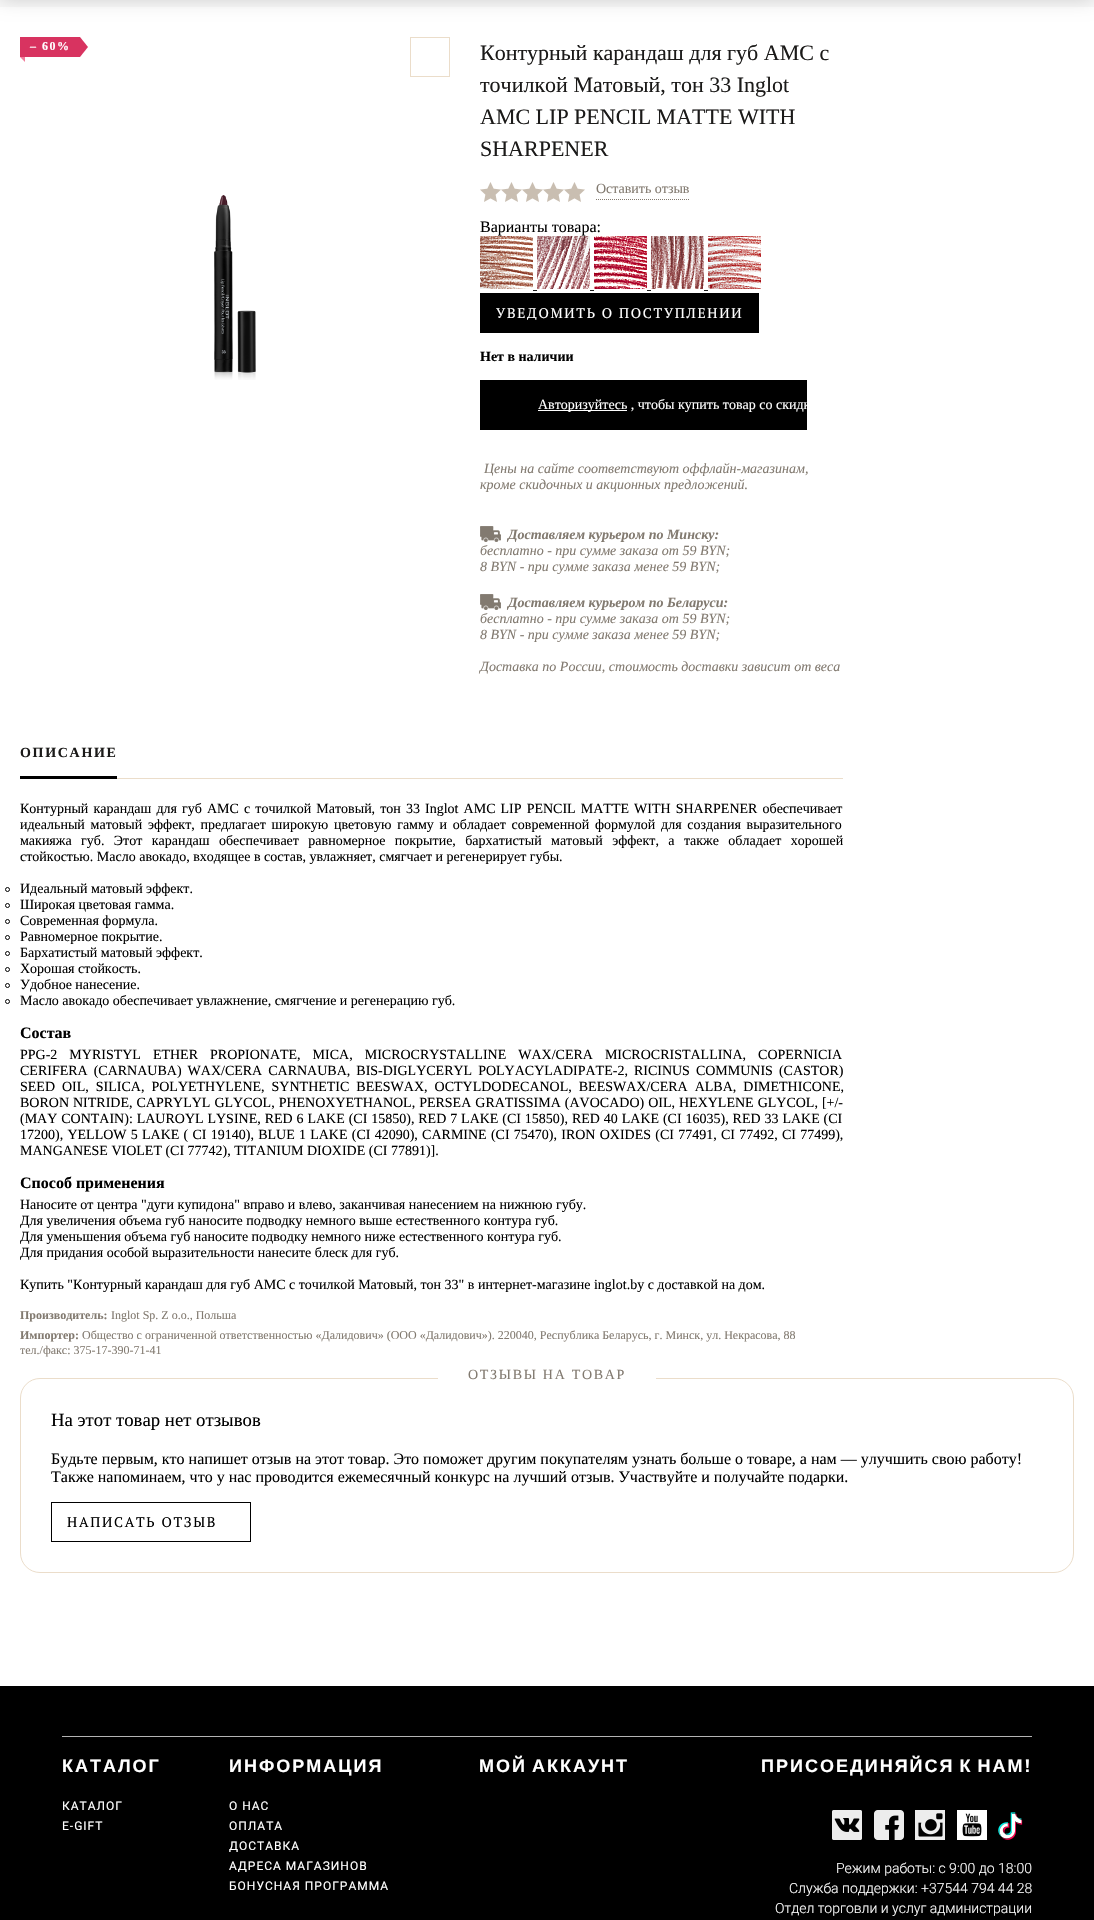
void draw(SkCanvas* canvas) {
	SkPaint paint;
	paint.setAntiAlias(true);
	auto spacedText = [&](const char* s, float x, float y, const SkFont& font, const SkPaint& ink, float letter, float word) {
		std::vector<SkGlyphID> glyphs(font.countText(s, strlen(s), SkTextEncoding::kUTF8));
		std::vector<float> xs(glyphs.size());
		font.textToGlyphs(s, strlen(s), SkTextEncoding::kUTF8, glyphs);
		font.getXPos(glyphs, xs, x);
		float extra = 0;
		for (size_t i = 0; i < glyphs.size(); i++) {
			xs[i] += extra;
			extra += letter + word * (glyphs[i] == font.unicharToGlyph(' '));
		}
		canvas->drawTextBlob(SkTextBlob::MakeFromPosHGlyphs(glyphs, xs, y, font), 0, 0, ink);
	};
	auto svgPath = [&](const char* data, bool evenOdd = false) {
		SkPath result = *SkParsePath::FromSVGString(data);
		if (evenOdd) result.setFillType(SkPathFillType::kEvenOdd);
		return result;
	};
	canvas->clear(0xffffffff);
	paint.setColor(0xfff9f9f9);
	canvas->drawRect(SkRect::MakeXYWH(0, 0, 1094, 7), paint);
	paint.setColor(0x33010101);
	paint.setMaskFilter(SkMaskFilter::MakeBlur(kNormal_SkBlurStyle, 10));
	canvas->drawRect(SkRect::MakeXYWH(0, -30, 1094, 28), paint);
	paint.setMaskFilter(nullptr);
	paint.setColor(0xffd83360);
	canvas->drawRect(SkRect::MakeXYWH(20, 37, 60, 20), paint);
	SkFont f1(fontMgr->matchFamilyStyle("Liberation Serif", SkFontStyle::Bold()), 12);
	f1.setSubpixel(true);
	paint.setColor(0xffffffff);
	spacedText("– 60%", 30, 50, f1, paint, 1.5, 0);
	paint.setColor(0xffd83360);
	canvas->drawPath(svgPath("M80 57V37L88 47Z"), paint);
	paint.setColor(0xfff17d9c);
	canvas->drawPath(svgPath("M25 57V62L20 57Z"), paint);
	paint.setStroke(true);
	paint.setStrokeWidth(1);
	paint.setColor(0xffebddca);
	canvas->drawRect(SkRect::MakeXYWH(410.5, 37.5, 39, 39), paint);
	canvas->drawImageRect(SkImages::DeferredFromEncodedData(SkData::MakeFromFileName("img1.png")), SkRect::MakeXYWH(214, 195, 42, 185), SkSamplingOptions());
	SkFont f2(fontMgr->matchFamilyStyle("Liberation Serif", SkFontStyle::Normal()), 22);
	f2.setSubpixel(true);
	paint.setStroke(false);
	paint.setColor(0xff1b1a19);
	canvas->drawString("Контурный карандаш для губ AMC с", 480, 60, f2, paint);
	canvas->drawString("точилкой Матовый, тон 33 Inglot", 480, 92, f2, paint);
	canvas->drawString("AMC LIP PENCIL MATTE WITH", 480, 124, f2, paint);
	canvas->drawString("SHARPENER", 480, 156, f2, paint);
	canvas->drawImageRect(SkImages::DeferredFromEncodedData(SkData::MakeFromFileName("img2.png")), SkRect::MakeXYWH(480, 182, 21, 20), SkSamplingOptions());
	canvas->drawImageRect(SkImages::DeferredFromEncodedData(SkData::MakeFromFileName("img2.png")), SkRect::MakeXYWH(501, 182, 21, 20), SkSamplingOptions());
	canvas->drawImageRect(SkImages::DeferredFromEncodedData(SkData::MakeFromFileName("img2.png")), SkRect::MakeXYWH(522, 182, 21, 20), SkSamplingOptions());
	canvas->drawImageRect(SkImages::DeferredFromEncodedData(SkData::MakeFromFileName("img2.png")), SkRect::MakeXYWH(543, 182, 21, 20), SkSamplingOptions());
	canvas->drawImageRect(SkImages::DeferredFromEncodedData(SkData::MakeFromFileName("img2.png")), SkRect::MakeXYWH(564, 182, 21, 20), SkSamplingOptions());
	paint.setStroke(true);
	paint.setColor(0xff827a70);
	paint.setPathEffect(SkDashPathEffect::Make({{1, 1}}, 0));
	canvas->drawPath(svgPath("M596 199.5H689"), paint);
	paint.setPathEffect(nullptr);
	SkFont f3(fontMgr->matchFamilyStyle("Liberation Serif", SkFontStyle::Normal()), 14);
	f3.setSubpixel(true);
	paint.setStroke(false);
	canvas->drawString("Оставить отзыв", 596, 193, f3, paint);
	SkFont f4(fontMgr->matchFamilyStyle("Liberation Serif", SkFontStyle::Normal()), 16);
	f4.setSubpixel(true);
	paint.setColor(0xff000000);
	canvas->drawString("Варианты товара:", 480, 232, f4, paint);
	canvas->drawImageRect(SkImages::DeferredFromEncodedData(SkData::MakeFromFileName("img3.png")), SkRect::MakeXYWH(480, 236, 53, 53), SkSamplingOptions());
	canvas->drawImageRect(SkImages::DeferredFromEncodedData(SkData::MakeFromFileName("img4.png")), SkRect::MakeXYWH(537, 236, 53, 53), SkSamplingOptions());
	canvas->drawImageRect(SkImages::DeferredFromEncodedData(SkData::MakeFromFileName("img5.png")), SkRect::MakeXYWH(594, 236, 53, 53), SkSamplingOptions());
	canvas->drawImageRect(SkImages::DeferredFromEncodedData(SkData::MakeFromFileName("img6.png")), SkRect::MakeXYWH(651, 236, 53, 53), SkSamplingOptions());
	canvas->drawImageRect(SkImages::DeferredFromEncodedData(SkData::MakeFromFileName("img7.png")), SkRect::MakeXYWH(708, 236, 53, 53), SkSamplingOptions());
	paint.setColor(0xff1a1a1a);
	canvas->drawRect(SkRect::MakeXYWH(533, 290, 4, 1), paint);
	canvas->drawRect(SkRect::MakeXYWH(590, 290, 4, 1), paint);
	canvas->drawRect(SkRect::MakeXYWH(647, 290, 4, 1), paint);
	canvas->drawRect(SkRect::MakeXYWH(704, 290, 4, 1), paint);
	paint.setColor(0xff000000);
	canvas->drawRect(SkRect::MakeXYWH(480, 293, 279, 40), paint);
	SkFont f5(fontMgr->matchFamilyStyle("PT Serif", SkFontStyle::Normal()), 14);
	f5.setSubpixel(true);
	paint.setColor(0xffffffff);
	spacedText("УВЕДОМИТЬ О ПОСТУПЛЕНИИ", 496, 318, f5, paint, 1.7, 0);
	SkFont f6(fontMgr->matchFamilyStyle("Liberation Serif", SkFontStyle::Bold()), 14);
	f6.setSubpixel(true);
	paint.setColor(0xff000000);
	canvas->drawString("Нет в наличии", 480, 361, f6, paint);
	canvas->drawRect(SkRect::MakeXYWH(480, 380, 327, 50), paint);
	paint.setColor(0xffffffff);
	canvas->drawRect(SkRect::MakeXYWH(538, 410, 89, 1), paint);
	canvas->drawString("Авторизуйтесь , чтобы купить товар со скидк", 538, 409, f3, paint);
	SkFont f7(fontMgr->matchFamilyStyle("Liberation Serif", SkFontStyle::Italic()), 14);
	f7.setSubpixel(true);
	paint.setColor(0xff827a70);
	canvas->drawString("Цены на сайте соответствуют оффлайн-магазинам,", 484, 473, f7, paint);
	canvas->drawString("кроме скидочных и акционных предложений.", 480, 489, f7, paint);
	canvas->drawImageRect(SkImages::DeferredFromEncodedData(SkData::MakeFromFileName("img8.png")), SkRect::MakeXYWH(480, 526, 21, 16), SkSamplingOptions());
	SkFont f8(fontMgr->matchFamilyStyle("Liberation Serif", SkFontStyle::BoldItalic()), 14);
	f8.setSubpixel(true);
	canvas->drawString("Доставляем курьером по Минску:", 508, 539, f8, paint);
	canvas->drawString("бесплатно - при сумме заказа от 59 BYN;", 480, 555, f7, paint);
	canvas->drawString("8 BYN - при сумме заказа менее 59 BYN;", 480, 571, f7, paint);
	canvas->drawImageRect(SkImages::DeferredFromEncodedData(SkData::MakeFromFileName("img8.png")), SkRect::MakeXYWH(480, 594, 21, 16), SkSamplingOptions());
	canvas->drawString("Доставляем курьером по Беларуси:", 508, 607, f8, paint);
	canvas->drawString("бесплатно - при сумме заказа от 59 BYN;", 480, 623, f7, paint);
	canvas->drawString("8 BYN - при сумме заказа менее 59 BYN;", 480, 639, f7, paint);
	canvas->drawString("Доставка по России, стоимость доставки зависит от веса", 480, 671, f7, paint);
	paint.setColor(0xff1b1a19);
	spacedText("ОПИСАНИЕ", 20, 757, f6, paint, 1.7, 0);
	paint.setColor(0xff000000);
	canvas->drawRect(SkRect::MakeXYWH(20, 776, 97, 3), paint);
	paint.setColor(0xffebddca);
	canvas->drawRect(SkRect::MakeXYWH(117, 778, 726, 1), paint);
	paint.setColor(0xff000000);
	spacedText("Контурный карандаш для губ AMC с точилкой Матовый, тон 33 Inglot AMC LIP PENCIL MATTE WITH SHARPENER обеспечивает", 20, 813, f3, paint, 0, 1.6);
	spacedText("идеальный матовый эффект, предлагает широкую цветовую гамму и обладает современной формулой для создания выразительного", 20, 829, f3, paint, 0, 2.25);
	spacedText("макияжа губ. Этот карандаш обеспечивает равномерное покрытие, бархатистый матовый эффект, а также обладает хорошей", 20, 845, f3, paint, 0, 5.9);
	canvas->drawString("стойкостью. Масло авокадо, входящее в состав, увлажняет, смягчает и регенерирует губы.", 20, 861, f3, paint);
	paint.setStroke(true);
	canvas->drawCircle(7.5, 889.5, 2, paint);
	paint.setStroke(false);
	canvas->drawString("Идеальный матовый эффект.", 20, 893, f3, paint);
	paint.setStroke(true);
	canvas->drawCircle(7.5, 905.5, 2, paint);
	paint.setStroke(false);
	canvas->drawString("Широкая цветовая гамма.", 20, 909, f3, paint);
	paint.setStroke(true);
	canvas->drawCircle(7.5, 921.5, 2, paint);
	paint.setStroke(false);
	canvas->drawString("Современная формула.", 20, 925, f3, paint);
	paint.setStroke(true);
	canvas->drawCircle(7.5, 937.5, 2, paint);
	paint.setStroke(false);
	canvas->drawString("Равномерное покрытие.", 20, 941, f3, paint);
	paint.setStroke(true);
	canvas->drawCircle(7.5, 953.5, 2, paint);
	paint.setStroke(false);
	canvas->drawString("Бархатистый матовый эффект.", 20, 957, f3, paint);
	paint.setStroke(true);
	canvas->drawCircle(7.5, 969.5, 2, paint);
	paint.setStroke(false);
	canvas->drawString("Хорошая стойкость.", 20, 973, f3, paint);
	paint.setStroke(true);
	canvas->drawCircle(7.5, 985.5, 2, paint);
	paint.setStroke(false);
	canvas->drawString("Удобное нанесение.", 20, 989, f3, paint);
	paint.setStroke(true);
	canvas->drawCircle(7.5, 1001.5, 2, paint);
	paint.setStroke(false);
	canvas->drawString("Масло авокадо обеспечивает увлажнение, смягчение и регенерацию губ.", 20, 1005, f3, paint);
	SkFont f9(fontMgr->matchFamilyStyle("Liberation Serif", SkFontStyle::Bold()), 16);
	f9.setSubpixel(true);
	canvas->drawString("Состав", 20, 1038, f9, paint);
	spacedText("PPG-2 MYRISTYL ETHER PROPIONATE, MICA, MICROCRYSTALLINE WAX/CERA MICROCRISTALLINA, COPERNICIA", 20, 1059, f3, paint, 0, 8.5);
	spacedText("CERIFERA (CARNAUBA) WAX/CERA CARNAUBA, BIS-DIGLYCERYL POLYACYLADIPATE-2, RICINUS COMMUNIS (CASTOR)", 20, 1075, f3, paint, 0, 2.5);
	spacedText("SEED OIL, SILICA, POLYETHYLENE, SYNTHETIC BEESWAX, OCTYLDODECANOL, BEESWAX/CERA ALBA, DIMETHICONE,", 20, 1091, f3, paint, 0, 3.5);
	spacedText("BORON NITRIDE, CAPRYLYL GLYCOL, PHENOXYETHANOL, PERSEA GRATISSIMA (AVOCADO) OIL, HEXYLENE GLYCOL, [+/-", 20, 1107, f3, paint, 0, 0.5);
	spacedText("(MAY CONTAIN): LAUROYL LYSINE, RED 6 LAKE (CI 15850), RED 7 LAKE (CI 15850), RED 40 LAKE (CI 16035), RED 33 LAKE (CI", 20, 1123, f3, paint, 0, 0.4);
	spacedText("17200), YELLOW 5 LAKE ( CI 19140), BLUE 1 LAKE (CI 42090), CARMINE (CI 75470), IRON OXIDES (CI 77491, CI 77492, CI 77499),", 20, 1139, f3, paint, 0, 0.75);
	canvas->drawString("MANGANESE VIOLET (CI 77742), TITANIUM DIOXIDE (CI 77891)].", 20, 1155, f3, paint);
	canvas->drawString("Способ применения", 20, 1188, f9, paint);
	canvas->drawString("Наносите от центра \"дуги купидона\" вправо и влево, заканчивая нанесением на нижнюю губу.", 20, 1209, f3, paint);
	canvas->drawString("Для увеличения объема губ наносите подводку немного выше естественного контура губ.", 20, 1225, f3, paint);
	canvas->drawString("Для уменьшения объема губ наносите подводку немного ниже естественного контура губ.", 20, 1241, f3, paint);
	canvas->drawString("Для придания особой выразительности нанесите блеск для губ.", 20, 1257, f3, paint);
	canvas->drawString("Купить \"Контурный карандаш для губ AMC с точилкой Матовый, тон 33\" в интернет-магазине inglot.by с доставкой на дом.", 20, 1289, f3, paint);
	paint.setColor(0xff827a70);
	canvas->drawString("Производитель:", 20, 1319, f1, paint);
	SkFont f10(fontMgr->matchFamilyStyle("Liberation Serif", SkFontStyle::Normal()), 12);
	f10.setSubpixel(true);
	canvas->drawString("Inglot Sp. Z o.o., Польша", 111, 1319, f10, paint);
	canvas->drawString("Импортер:", 20, 1339, f1, paint);
	canvas->drawString("Общество с ограниченной ответственностью «Далидович» (ООО «Далидович»). 220040, Республика Беларусь, г. Минск, ул. Некрасова, 88", 82, 1339, f10, paint);
	canvas->drawString("тел./факс: 375-17-390-71-41", 20, 1354, f10, paint);
	paint.setStroke(true);
	paint.setColor(0xffebddca);
	canvas->drawRoundRect(SkRect::MakeXYWH(20.5, 1378.5, 1053, 194), 19.5, 19.5, paint);
	paint.setStroke(false);
	paint.setColor(0xffffffff);
	canvas->drawRect(SkRect::MakeXYWH(438, 1378, 218, 1), paint);
	paint.setColor(0xff827a70);
	spacedText("ОТЗЫВЫ НА ТОВАР", 468, 1379, f3, paint, 1.7, 0);
	SkFont f11(fontMgr->matchFamilyStyle("Liberation Serif", SkFontStyle::Normal()), 18.75);
	f11.setSubpixel(true);
	paint.setColor(0xff000000);
	canvas->drawString("На этот товар нет отзывов", 51, 1426, f11, paint);
	canvas->drawString("Будьте первым, кто напишет отзыв на этот товар. Это поможет другим покупателям узнать больше о товаре, а нам — улучшить свою работу!", 51, 1464, f4, paint);
	canvas->drawString("Также напоминаем, что у нас проводится ежемесячный конкурс на лучший отзыв. Участвуйте и получайте подарки.", 51, 1482, f4, paint);
	paint.setStroke(true);
	canvas->drawRect(SkRect::MakeXYWH(51.5, 1502.5, 199, 39), paint);
	paint.setStroke(false);
	spacedText("НАПИСАТЬ ОТЗЫВ", 67, 1527, f5, paint, 1.7, 0);
	canvas->drawRect(SkRect::MakeXYWH(0, 1686, 1094, 234), paint);
	paint.setColor(0xffb3b3b3);
	canvas->drawRect(SkRect::MakeXYWH(62, 1736, 970, 1), paint);
	SkFont f12(fontMgr->matchFamilyStyle("Liberation Sans", SkFontStyle::Bold()), 18);
	f12.setSubpixel(true);
	paint.setColor(0xffffffff);
	spacedText("КАТАЛОГ", 62, 1772, f12, paint, 2, 0);
	SkFont f13(fontMgr->matchFamilyStyle("Roboto", SkFontStyle::Normal()), 12);
	f13.setSubpixel(true);
	spacedText("КАТАЛОГ", 62, 1810, f13, paint, 1, 0);
	spacedText("E-GIFT", 62, 1830, f13, paint, 1, 0);
	spacedText("ИНФОРМАЦИЯ", 229, 1772, f12, paint, 2, 0);
	spacedText("О НАС", 229, 1810, f13, paint, 1, 0);
	spacedText("ОПЛАТА", 229, 1830, f13, paint, 1, 0);
	spacedText("ДОСТАВКА", 229, 1850, f13, paint, 1, 0);
	spacedText("АДРЕСА МАГАЗИНОВ", 229, 1870, f13, paint, 1, 0);
	spacedText("БОНУСНАЯ ПРОГРАММА", 229, 1890, f13, paint, 1, 0);
	spacedText("МОЙ АККАУНТ", 479, 1772, f12, paint, 2, -2);
	spacedText("ПРИСОЕДИНЯЙСЯ К НАМ", 761, 1772, f12, paint, 2, -2);
	SkFont f14(fontMgr->matchFamilyStyle("Saira Condensed", SkFontStyle::Bold()), 18);
	f14.setSubpixel(true);
	spacedText("!", 1025, 1772, f14, paint, 2, 0);
	canvas->drawImageRect(SkImages::DeferredFromEncodedData(SkData::MakeFromFileName("img9.png")), SkRect::MakeXYWH(832, 1810, 30, 30), SkSamplingOptions());
	canvas->drawImageRect(SkImages::DeferredFromEncodedData(SkData::MakeFromFileName("img10.png")), SkRect::MakeXYWH(874, 1810, 30, 30), SkSamplingOptions());
	canvas->drawImageRect(SkImages::DeferredFromEncodedData(SkData::MakeFromFileName("img11.png")), SkRect::MakeXYWH(915, 1810, 30, 30), SkSamplingOptions());
	canvas->drawImageRect(SkImages::DeferredFromEncodedData(SkData::MakeFromFileName("img12.png")), SkRect::MakeXYWH(957, 1810, 30, 30), SkSamplingOptions());
	canvas->drawImageRect(SkImages::DeferredFromEncodedData(SkData::MakeFromFileName("img13.png")), SkRect::MakeXYWH(998, 1812, 25, 28), SkSamplingOptions());
	SkFont f15(fontMgr->matchFamilyStyle("Roboto", SkFontStyle(300, SkFontStyle::kNormal_Width, SkFontStyle::kUpright_Slant)), 14);
	f15.setSubpixel(true);
	canvas->drawString("Режим работы: c 9:00 до 18:00", 836, 1873, f15, paint);
	canvas->drawString("Служба поддержки: +37544 794 44 28", 789, 1893, f15, paint);
	canvas->drawString("Отдел торговли и услуг администрации", 775, 1913, f15, paint);
}
